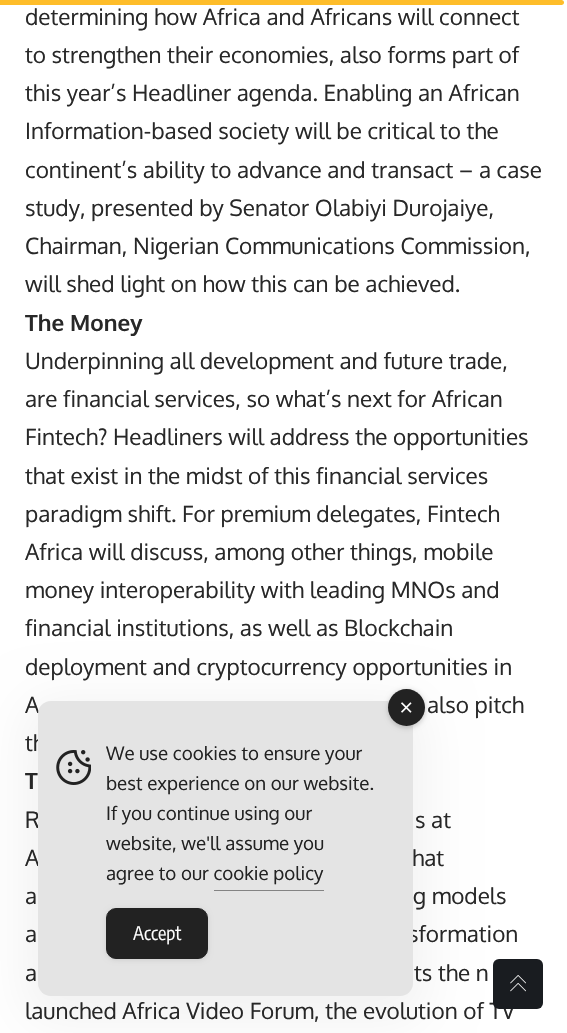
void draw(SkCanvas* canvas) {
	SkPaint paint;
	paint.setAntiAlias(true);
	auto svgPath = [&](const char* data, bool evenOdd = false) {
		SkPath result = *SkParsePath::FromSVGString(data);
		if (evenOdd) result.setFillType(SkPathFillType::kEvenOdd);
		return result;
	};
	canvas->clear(0xffffffff);
	paint.setColor(0xfffebd2a);
	canvas->drawPath(svgPath("M0 0H561.5C563 0 564 1 564 2.5C564 4 563 5 561.5 5H0Z"), paint);
	SkFont f1(fontMgr->matchFamilyStyle("Oxygen", SkFontStyle::Normal()), 22.5);
	f1.setSubpixel(true);
	paint.setColor(0xff282828);
	canvas->drawString("determining how Africa and Africans will connect", 25, 25, f1, paint);
	canvas->drawString("to strengthen their economies, also forms part of", 25, 63, f1, paint);
	canvas->drawString("this year’s Headliner agenda. Enabling an African", 25, 101, f1, paint);
	canvas->drawString("Information-based society will be critical to the", 25, 139, f1, paint);
	canvas->drawString("continent’s ability to advance and transact – a case", 25, 178, f1, paint);
	canvas->drawString("study, presented by Senator Olabiyi Durojaiye,", 25, 216, f1, paint);
	canvas->drawString("Chairman, Nigerian Communications Commission,", 25, 254, f1, paint);
	canvas->drawString("will shed light on how this can be achieved.", 25, 292, f1, paint);
	SkFont f2(fontMgr->matchFamilyStyle("Oxygen", SkFontStyle::Bold()), 22.5);
	f2.setSubpixel(true);
	canvas->drawString("The Money", 25, 331, f2, paint);
	canvas->drawString("Underpinning all development and future trade,", 25, 369, f1, paint);
	canvas->drawString("are financial services, so what’s next for African", 25, 407, f1, paint);
	canvas->drawString("Fintech? Headliners will address the opportunities", 25, 445, f1, paint);
	canvas->drawString("that exist in the midst of this financial services", 25, 484, f1, paint);
	canvas->drawString("paradigm shift. For premium delegates, Fintech", 25, 522, f1, paint);
	canvas->drawString("Africa will discuss, among other things, mobile", 25, 560, f1, paint);
	canvas->drawString("money interoperability with leading MNOs and", 25, 598, f1, paint);
	canvas->drawString("financial institutions, as well as Blockchain", 25, 636, f1, paint);
	canvas->drawString("deployment and cryptocurrency opportunities in", 25, 675, f1, paint);
	canvas->drawString("A", 25, 713, f1, paint);
	canvas->drawString("also pitch", 427, 713, f1, paint);
	canvas->drawString("th", 25, 751, f1, paint);
	canvas->drawString("T", 25, 789, f2, paint);
	canvas->drawString("R", 25, 828, f1, paint);
	canvas->drawString("s at", 415, 828, f1, paint);
	canvas->drawString("A", 25, 866, f1, paint);
	canvas->drawString("hat", 412, 866, f1, paint);
	canvas->drawString("a", 25, 904, f1, paint);
	canvas->drawString("g models", 413, 904, f1, paint);
	canvas->drawString("a", 25, 942, f1, paint);
	canvas->drawString("sformation", 408, 942, f1, paint);
	canvas->drawString("a", 25, 981, f1, paint);
	canvas->drawString("ts the n", 414, 981, f1, paint);
	canvas->drawString("launched Africa Video Forum, the evolution of TV", 25, 1019, f1, paint);
	paint.setColor(0xff191c20);
	canvas->drawRoundRect(SkRect::MakeXYWH(493, 959, 50, 50), 6, 6, paint);
	paint.setColor(0x0d000000);
	paint.setMaskFilter(SkMaskFilter::MakeBlur(kNormal_SkBlurStyle, 25));
	canvas->drawRoundRect(SkRect::MakeXYWH(25, 701, 400, 320), 25, 25, paint);
	paint.setMaskFilter(nullptr);
	paint.setColor(0xffe4e4e4);
	canvas->drawRoundRect(SkRect::MakeXYWH(38, 701, 375, 295), 13, 13, paint);
	paint.setColor(0x33000000);
	paint.setMaskFilter(SkMaskFilter::MakeBlur(kNormal_SkBlurStyle, 2.5));
	canvas->drawRoundRect(SkRect::MakeXYWH(388, 690, 37, 38), 18.5, 18.5, paint);
	paint.setMaskFilter(nullptr);
	paint.setColor(0xff222222);
	canvas->drawCircle(406.5, 707.5, 18.5, paint);
	canvas->drawImageRect(SkImages::DeferredFromEncodedData(SkData::MakeFromFileName("img1.png")), SkRect::MakeXYWH(401, 702, 11, 11), SkSamplingOptions());
	canvas->drawImageRect(SkImages::DeferredFromEncodedData(SkData::MakeFromFileName("img2.png")), SkRect::MakeXYWH(56, 750, 35, 35), SkSamplingOptions());
	SkFont f3(fontMgr->matchFamilyStyle("Oxygen", SkFontStyle::Normal()), 18.75);
	f3.setSubpixel(true);
	canvas->drawString("We use cookies to ensure your", 106, 760, f3, paint);
	canvas->drawString("best experience on our website.", 106, 790, f3, paint);
	canvas->drawString("If you continue using our", 106, 820, f3, paint);
	canvas->drawString("website, we'll assume you", 106, 850, f3, paint);
	canvas->drawString("agree to our cookie policy", 106, 880, f3, paint);
	paint.setColor(0xff838383);
	canvas->drawRect(SkRect::MakeXYWH(214, 890, 110, 1), paint);
	paint.setColor(0x1a000000);
	paint.setMaskFilter(SkMaskFilter::MakeBlur(kNormal_SkBlurStyle, 2.5));
	canvas->drawRoundRect(SkRect::MakeXYWH(106, 909, 102, 51), 10, 10, paint);
	paint.setMaskFilter(nullptr);
	paint.setColor(0xff222222);
	canvas->drawRoundRect(SkRect::MakeXYWH(106.5, 908.5, 101, 50), 9.5, 9.5, paint);
	paint.setStroke(true);
	paint.setStrokeWidth(1);
	canvas->drawRoundRect(SkRect::MakeXYWH(106.5, 908.5, 101, 50), 9.5, 9.5, paint);
	SkFont f4(fontMgr->matchFamilyStyle("Encode Sans Condensed", SkFontStyle::Normal()), 18.75);
	f4.setSubpixel(true);
	paint.setStroke(false);
	paint.setColor(0xffffffff);
	canvas->drawString("Accept", 133, 940, f4, paint);
	canvas->drawImageRect(SkImages::DeferredFromEncodedData(SkData::MakeFromFileName("img3.png")), SkRect::MakeXYWH(510, 975, 16, 17), SkSamplingOptions());
}
